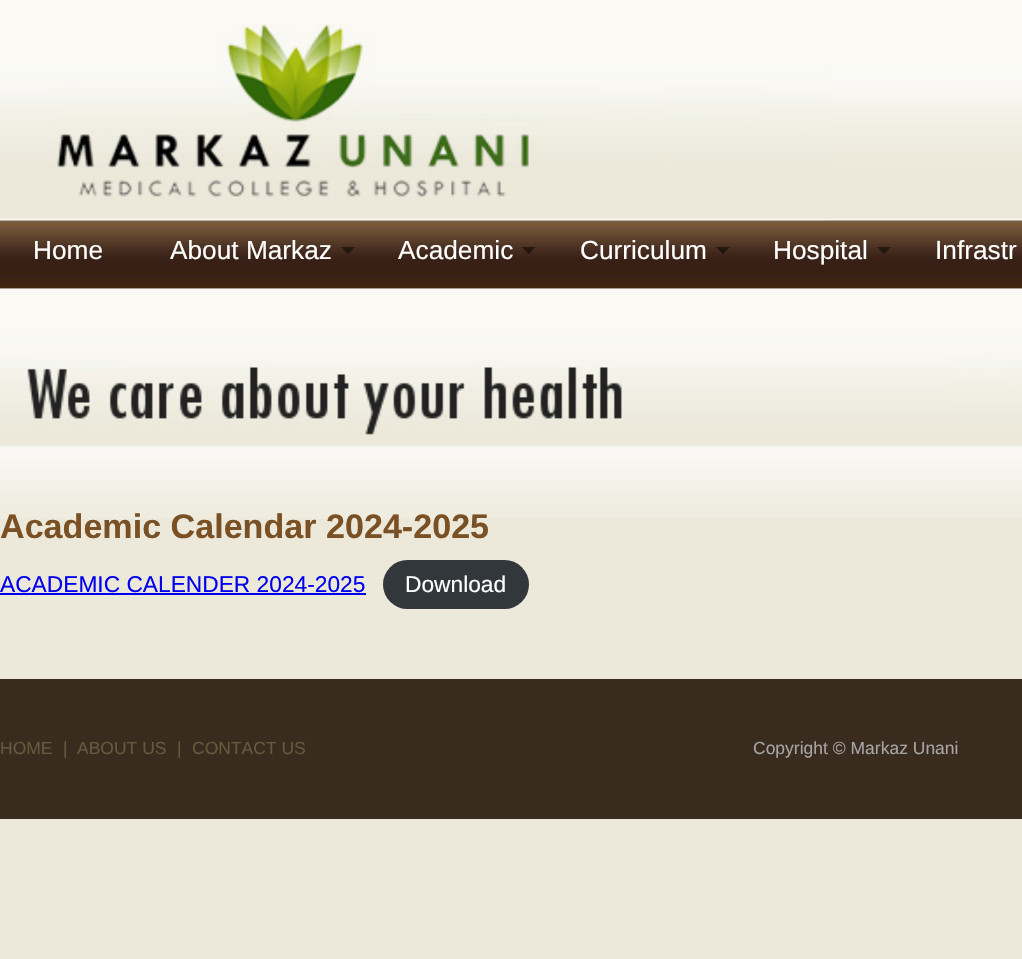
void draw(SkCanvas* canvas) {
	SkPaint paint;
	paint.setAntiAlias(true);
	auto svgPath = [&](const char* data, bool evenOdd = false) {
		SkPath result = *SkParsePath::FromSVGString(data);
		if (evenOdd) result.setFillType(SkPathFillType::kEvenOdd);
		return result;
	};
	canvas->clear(0xffece9da);
	canvas->drawImageRect(SkImages::DeferredFromEncodedData(SkData::MakeFromFileName("img1.png")), SkRect::MakeXYWH(0, 0, 1022, 221), SkSamplingOptions());
	canvas->drawImageRect(SkImages::DeferredFromEncodedData(SkData::MakeFromFileName("img2.png")), SkRect::MakeXYWH(0, 24, 831, 197), SkSamplingOptions());
	canvas->drawImageRect(SkImages::DeferredFromEncodedData(SkData::MakeFromFileName("img3.png")), SkRect::MakeXYWH(0, 220, 1022, 69), SkSamplingOptions());
	SkFont f1(fontMgr->matchFamilyStyle("Liberation Sans", SkFontStyle::Normal()), 26.25);
	f1.setSubpixel(true);
	paint.setColor(0xffffffff);
	canvas->drawString("Home", 33, 259, f1, paint);
	canvas->drawString("About Markaz", 170, 259, f1, paint);
	paint.setColor(0x80000000);
	canvas->drawPath(svgPath("M341 247H355L348 254Z"), paint);
	paint.setColor(0xffffffff);
	canvas->drawString("Academic", 398, 259, f1, paint);
	paint.setColor(0x80000000);
	canvas->drawPath(svgPath("M521.5 247H535.5L528.5 254Z"), paint);
	paint.setColor(0xffffffff);
	canvas->drawString("Curriculum", 580, 259, f1, paint);
	paint.setColor(0x80000000);
	canvas->drawPath(svgPath("M716 247H730L723 254Z"), paint);
	paint.setColor(0xffffffff);
	canvas->drawString("Hospital", 773, 259, f1, paint);
	paint.setColor(0x80000000);
	canvas->drawPath(svgPath("M877 247H891L884 254Z"), paint);
	paint.setColor(0xffffffff);
	canvas->drawString("Infrastr", 935, 259, f1, paint);
	canvas->drawImageRect(SkImages::DeferredFromEncodedData(SkData::MakeFromFileName("img4.png")), SkRect::MakeXYWH(0, 288, 1022, 1), SkSamplingOptions());
	canvas->drawImageRect(SkImages::DeferredFromEncodedData(SkData::MakeFromFileName("img5.png")), SkRect::MakeXYWH(0, 288, 1022, 158), SkSamplingOptions());
	canvas->drawImageRect(SkImages::DeferredFromEncodedData(SkData::MakeFromFileName("img6.png")), SkRect::MakeXYWH(0, 446, 1022, 73), SkSamplingOptions());
	SkFont f2(fontMgr->matchFamilyStyle("Liberation Sans", SkFontStyle::Bold()), 34.1);
	f2.setSubpixel(true);
	paint.setColor(0xff7a5125);
	canvas->drawString("Academic Calendar 2024-2025", 0, 538, f2, paint);
	SkFont f3(fontMgr->matchFamilyStyle("Liberation Sans", SkFontStyle::Normal()), 22.75);
	f3.setSubpixel(true);
	paint.setColor(0xff0000ee);
	canvas->drawString("ACADEMIC CALENDER 2024-2025", 0, 592, f3, paint);
	canvas->drawRect(SkRect::MakeXYWH(0, 593, 366, 2), paint);
	paint.setColor(0xff32373c);
	canvas->drawRoundRect(SkRect::MakeXYWH(383, 560, 146, 49), 24.5, 24.5, paint);
	paint.setColor(0xffffffff);
	canvas->drawString("Download", 405, 592, f3, paint);
	paint.setColor(0xff392c1f);
	canvas->drawRect(SkRect::MakeXYWH(0, 679, 1022, 140), paint);
	SkFont f4(fontMgr->matchFamilyStyle("Liberation Sans", SkFontStyle::Normal()), 17.5);
	f4.setSubpixel(true);
	paint.setColor(0xff68583e);
	canvas->drawString("HOME", 0, 754, f4, paint);
	canvas->drawString("|", 63, 754, f4, paint);
	canvas->drawString("ABOUT US", 77, 754, f4, paint);
	canvas->drawString("|", 177, 754, f4, paint);
	canvas->drawString("CONTACT US", 192, 754, f4, paint);
	paint.setColor(0xffa6a4a4);
	canvas->drawString("Copyright © Markaz Unani", 753, 754, f4, paint);
}
